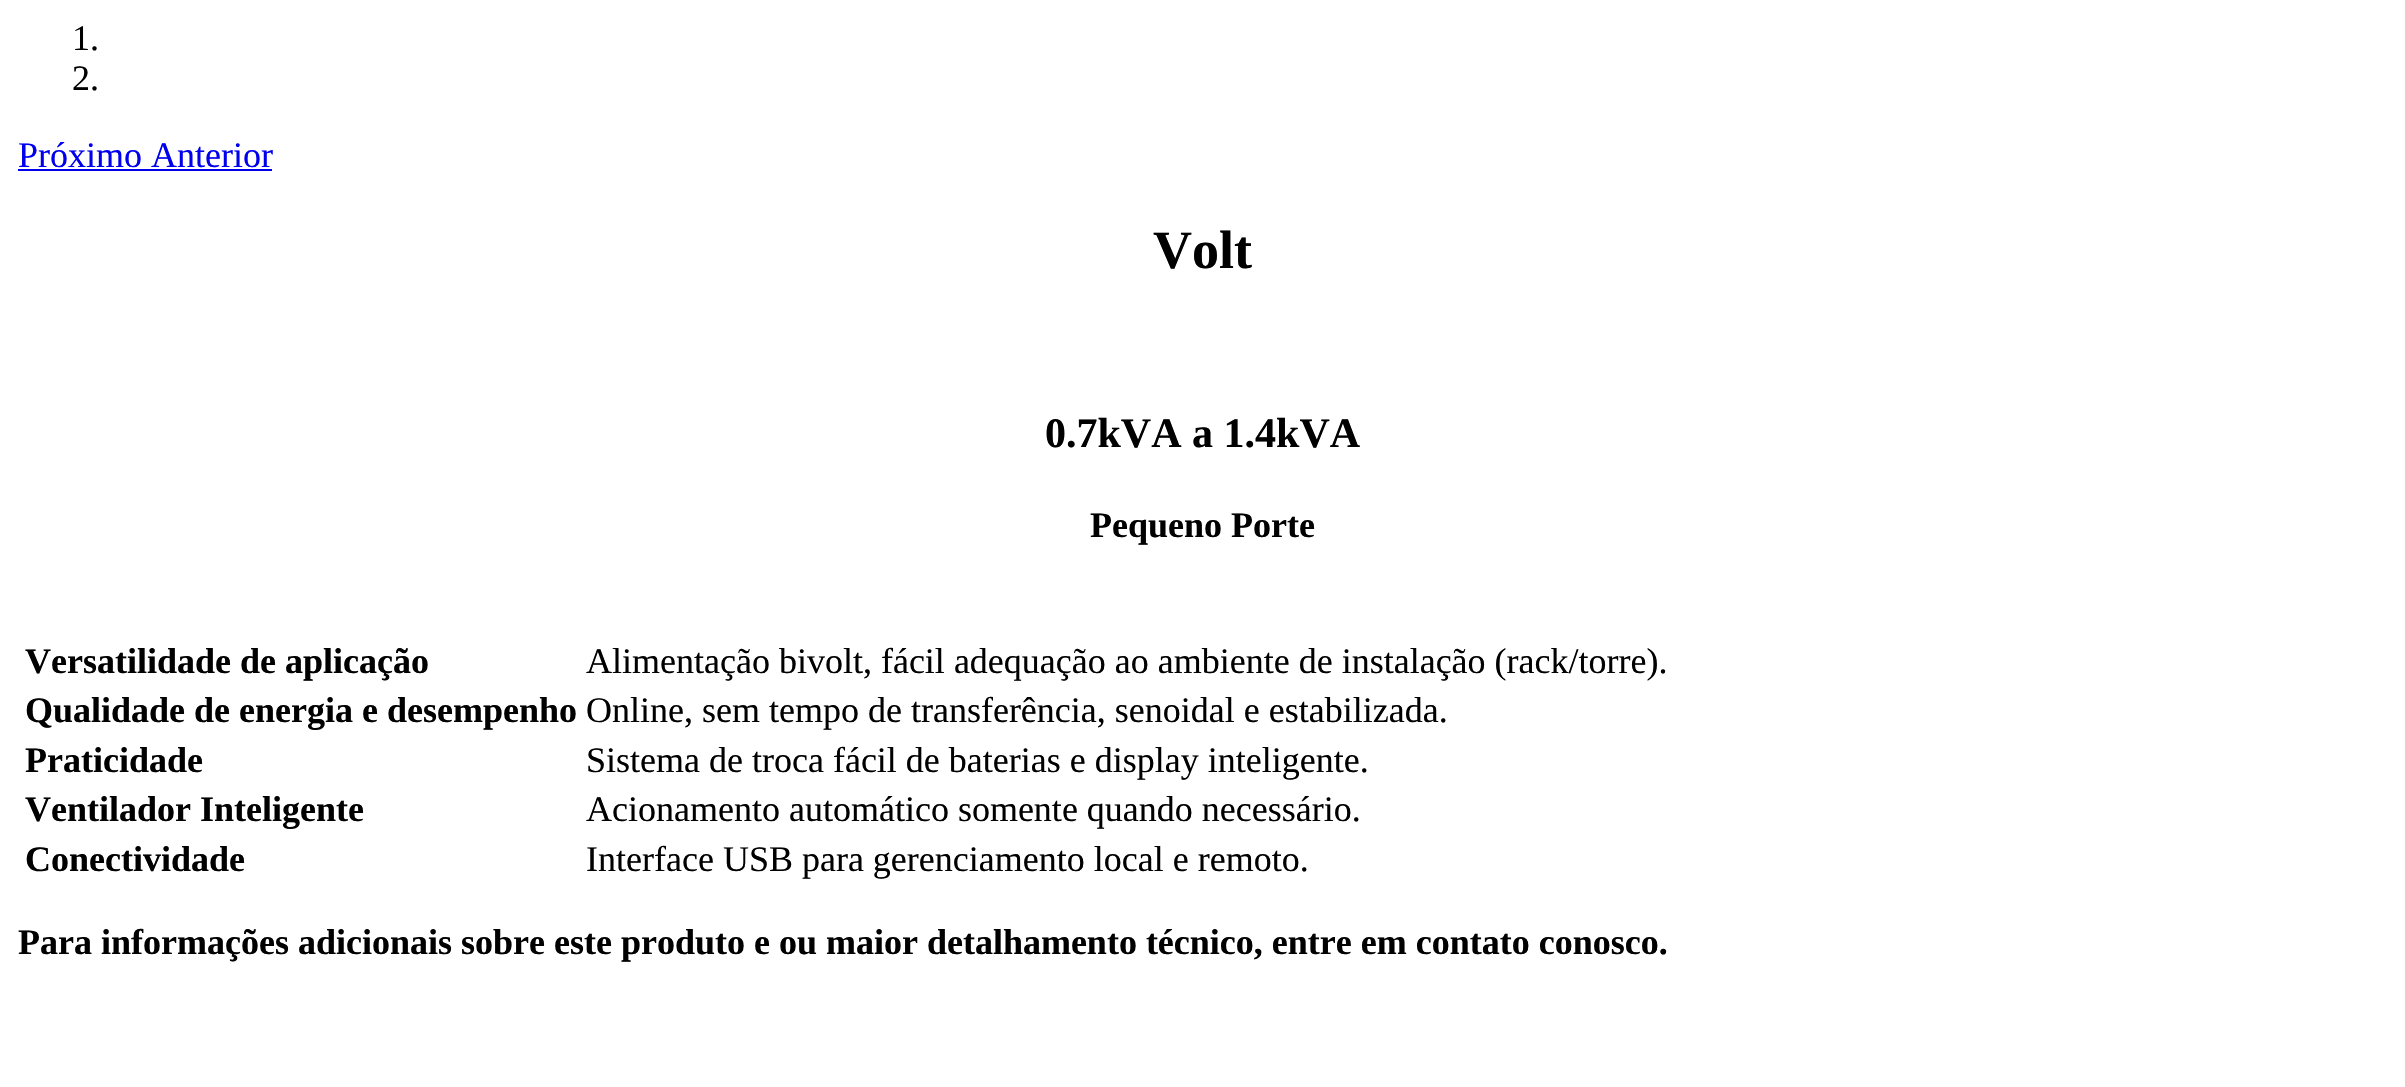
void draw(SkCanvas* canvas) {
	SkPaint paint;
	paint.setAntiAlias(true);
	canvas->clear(0xffffffff);
	SkFont f1(fontMgr->matchFamilyStyle("Liberation Serif", SkFontStyle::Normal()), 36);
	f1.setSubpixel(true);
	paint.setColor(0xff000000);
	canvas->drawString("1.", 72, 50, f1, paint);
	canvas->drawString("2.", 72, 90, f1, paint);
	paint.setColor(0xff0000ee);
	canvas->drawString("Próximo Anterior", 18, 167, f1, paint);
	canvas->drawRect(SkRect::MakeXYWH(18, 169, 254, 2), paint);
	SkFont f2(fontMgr->matchFamilyStyle("Liberation Serif", SkFontStyle::Bold()), 54);
	f2.setSubpixel(true);
	paint.setColor(0xff000000);
	canvas->drawString("Volt", 1153, 268, f2, paint);
	SkFont f3(fontMgr->matchFamilyStyle("Liberation Serif", SkFontStyle::Bold()), 42);
	f3.setSubpixel(true);
	canvas->drawString("0.7kVA a 1.4kVA", 1045, 447, f3, paint);
	SkFont f4(fontMgr->matchFamilyStyle("Liberation Serif", SkFontStyle::Bold()), 36);
	f4.setSubpixel(true);
	canvas->drawString("Pequeno Porte", 1090, 537, f4, paint);
	canvas->drawString("Versatilidade de aplicação", 25, 673, f4, paint);
	canvas->drawString("Alimentação bivolt, fácil adequação ao ambiente de instalação (rack/torre).", 586, 673, f1, paint);
	canvas->drawString("Qualidade de energia e desempenho", 25, 722, f4, paint);
	canvas->drawString("Online, sem tempo de transferência, senoidal e estabilizada.", 586, 722, f1, paint);
	canvas->drawString("Praticidade", 25, 772, f4, paint);
	canvas->drawString("Sistema de troca fácil de baterias e display inteligente.", 586, 772, f1, paint);
	canvas->drawString("Ventilador Inteligente", 25, 821, f4, paint);
	canvas->drawString("Acionamento automático somente quando necessário.", 586, 821, f1, paint);
	canvas->drawString("Conectividade", 25, 871, f4, paint);
	canvas->drawString("Interface USB para gerenciamento local e remoto.", 586, 871, f1, paint);
	canvas->drawString("Para informações adicionais sobre este produto e ou maior detalhamento técnico, entre em contato conosco.", 18, 954, f4, paint);
}
